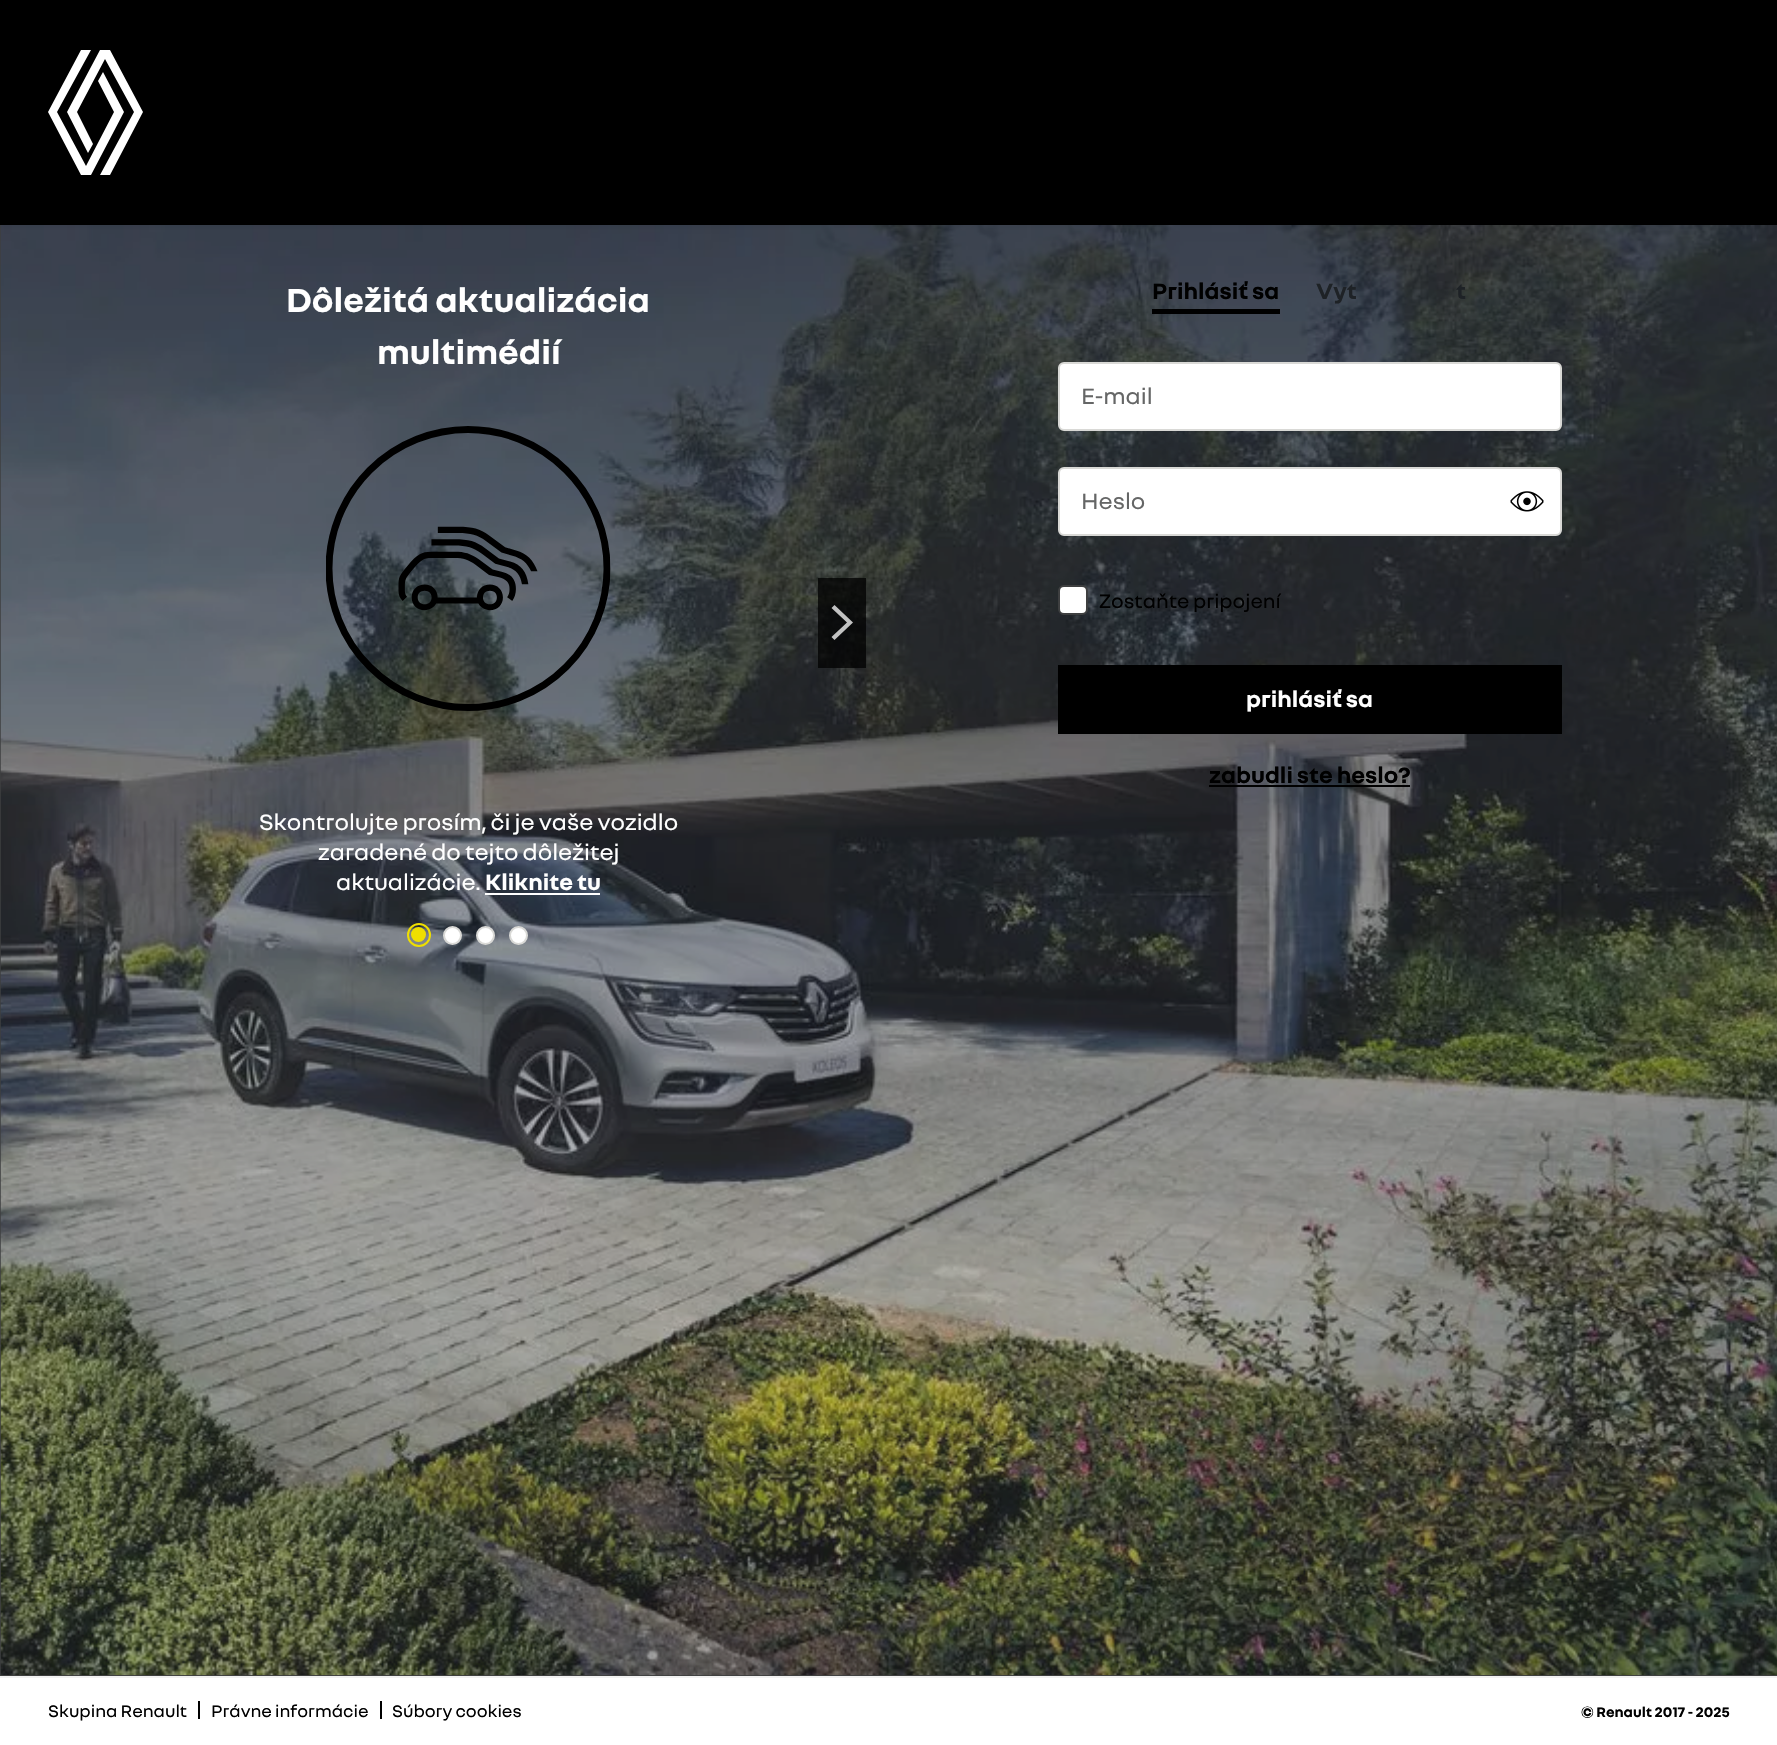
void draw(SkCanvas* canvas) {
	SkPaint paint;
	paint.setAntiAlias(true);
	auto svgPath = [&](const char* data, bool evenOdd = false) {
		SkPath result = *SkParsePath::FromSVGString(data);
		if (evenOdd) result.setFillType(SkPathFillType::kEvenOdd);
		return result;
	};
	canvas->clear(0xffffffff);
	paint.setColor(0xff3e3f40);
	canvas->drawRect(SkRect::MakeXYWH(0, 225, 1777, 1451), paint);
	canvas->drawImageRect(SkImages::DeferredFromEncodedData(SkData::MakeFromFileName("img1.png")), SkRect::MakeXYWH(0, 225, 1777, 1451), SkSamplingOptions());
	paint.setColor(0x0d000000);
	paint.setMaskFilter(SkMaskFilter::MakeBlur(kNormal_SkBlurStyle, 2));
	canvas->drawRect(SkRect::MakeXYWH(0, 2, 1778, 225), paint);
	paint.setMaskFilter(nullptr);
	paint.setColor(0xff000000);
	canvas->drawRect(SkRect::MakeXYWH(0, 0, 1777, 225), paint);
	paint.setColor(0xffffffff);
	canvas->drawPath(svgPath("M124 112L91 175H81L48 112L81 50H91L57 112L86 166L114 112L98 81L103 72ZM110 50H100L67 112L88 153L93 144L77 112L105 59L134 112L100 175H110L143 112Z"), paint);
	SkFont f1(fontMgr->matchFamilyStyle("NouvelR", SkFontStyle::Bold()), 36);
	f1.setSubpixel(true);
	canvas->drawString("Dôležitá aktualizácia", 286, 312, f1, paint);
	canvas->drawString("multimédií", 377, 364, f1, paint);
	canvas->drawImageRect(SkImages::DeferredFromEncodedData(SkData::MakeFromFileName("img2.png")), SkRect::MakeXYWH(326, 426, 285, 285), SkSamplingOptions());
	SkFont f2(fontMgr->matchFamilyStyle("NouvelR", SkFontStyle::Normal()), 24);
	f2.setSubpixel(true);
	canvas->drawString("Skontrolujte prosím, či je vaše vozidlo", 259, 830, f2, paint);
	canvas->drawString("zaradené do tejto dôležitej", 318, 860, f2, paint);
	canvas->drawString("aktualizácie.", 336, 890, f2, paint);
	SkFont f3(fontMgr->matchFamilyStyle("NouvelR", SkFontStyle::Bold()), 24);
	f3.setSubpixel(true);
	canvas->drawString("Kliknite tu", 485, 890, f3, paint);
	canvas->drawRect(SkRect::MakeXYWH(485, 893, 115, 2), paint);
	paint.setColor(0xbf000000);
	canvas->drawRect(SkRect::MakeXYWH(818, 578, 48, 90), paint);
	paint.setColor(0xbfffffff);
	canvas->drawPath(svgPath("M834.5 640L853 622.5L834.5 605L831.5 608L847 622.5L831.5 637Z"), paint);
	paint.setColor(0xffefdf00);
	canvas->drawCircle(418.5, 934.5, 7.5, paint);
	paint.setStroke(true);
	paint.setStrokeWidth(2);
	canvas->drawCircle(419, 935, 11, paint);
	paint.setStroke(false);
	paint.setColor(0xffffffff);
	canvas->drawCircle(452.5, 935.5, 8.5, paint);
	paint.setStroke(true);
	paint.setColor(0xffd9d9d6);
	canvas->drawCircle(452.5, 935.5, 8.5, paint);
	paint.setStroke(false);
	paint.setColor(0xffffffff);
	canvas->drawCircle(485.5, 935.5, 8.5, paint);
	paint.setStroke(true);
	paint.setColor(0xffd9d9d6);
	canvas->drawCircle(485.5, 935.5, 8.5, paint);
	paint.setStroke(false);
	paint.setColor(0xffffffff);
	canvas->drawCircle(518.5, 935.5, 8.5, paint);
	paint.setStroke(true);
	paint.setColor(0xffd9d9d6);
	canvas->drawCircle(518.5, 935.5, 8.5, paint);
	paint.setStroke(false);
	paint.setColor(0xff000000);
	canvas->drawString("Prihlásiť sa", 1152, 299, f3, paint);
	canvas->drawRect(SkRect::MakeXYWH(1152, 309, 128, 5), paint);
	paint.setColor(0xff1e2226);
	canvas->drawString("Vyt", 1316, 299, f3, paint);
	canvas->drawString("t", 1456, 299, f3, paint);
	paint.setColor(0xffffffff);
	canvas->drawRoundRect(SkRect::MakeXYWH(1059, 363, 502, 67), 5, 5, paint);
	paint.setStroke(true);
	paint.setColor(0xffd9d9d6);
	canvas->drawRoundRect(SkRect::MakeXYWH(1059, 363, 502, 67), 5, 5, paint);
	paint.setStroke(false);
	paint.setColor(0xff656666);
	canvas->drawString("E-mail", 1081, 404, f2, paint);
	paint.setColor(0xffffffff);
	canvas->drawRoundRect(SkRect::MakeXYWH(1059, 468, 502, 67), 5, 5, paint);
	paint.setStroke(true);
	paint.setColor(0xffd9d9d6);
	canvas->drawRoundRect(SkRect::MakeXYWH(1059, 468, 502, 67), 5, 5, paint);
	paint.setStroke(false);
	paint.setColor(0xff656666);
	canvas->drawString("Heslo", 1081, 509, f2, paint);
	canvas->drawImageRect(SkImages::DeferredFromEncodedData(SkData::MakeFromFileName("img3.png")), SkRect::MakeXYWH(1510, 491, 34, 21), SkSamplingOptions());
	paint.setColor(0xffffffff);
	canvas->drawRoundRect(SkRect::MakeXYWH(1059, 586, 28, 28), 5, 5, paint);
	paint.setStroke(true);
	paint.setColor(0xff3e3f40);
	canvas->drawRoundRect(SkRect::MakeXYWH(1059, 586, 28, 28), 5, 5, paint);
	SkFont f4(fontMgr->matchFamilyStyle("NouvelR", SkFontStyle::Normal()), 21);
	f4.setSubpixel(true);
	paint.setStroke(false);
	paint.setColor(0xff000000);
	canvas->drawString("Zostaňte pripojení", 1099, 608, f4, paint);
	canvas->drawRect(SkRect::MakeXYWH(1058, 665, 504, 69), paint);
	paint.setColor(0xffffffff);
	canvas->drawString("prihlásiť sa", 1246, 707, f3, paint);
	paint.setColor(0xff000000);
	canvas->drawString("zabudli ste heslo?", 1209, 783, f3, paint);
	canvas->drawRect(SkRect::MakeXYWH(1209, 785, 201, 2), paint);
	paint.setColor(0xfff2f2f2);
	canvas->drawRect(SkRect::MakeXYWH(0, 1676, 1777, 2), paint);
	SkFont f5(fontMgr->matchFamilyStyle("NouvelR", SkFontStyle::Normal()), 18);
	f5.setSubpixel(true);
	paint.setColor(0xff000000);
	canvas->drawString("Skupina Renault", 48, 1717, f5, paint);
	canvas->drawRect(SkRect::MakeXYWH(198, 1701, 2, 18), paint);
	canvas->drawString("Právne informácie", 211, 1717, f5, paint);
	canvas->drawRect(SkRect::MakeXYWH(380, 1701, 2, 18), paint);
	canvas->drawString("Súbory cookies", 392, 1717, f5, paint);
	SkFont f6(fontMgr->matchFamilyStyle("NouvelR", SkFontStyle::Bold()), 15);
	f6.setSubpixel(true);
	canvas->drawString("© Renault 2017 - 2025", 1581, 1717, f6, paint);
}
